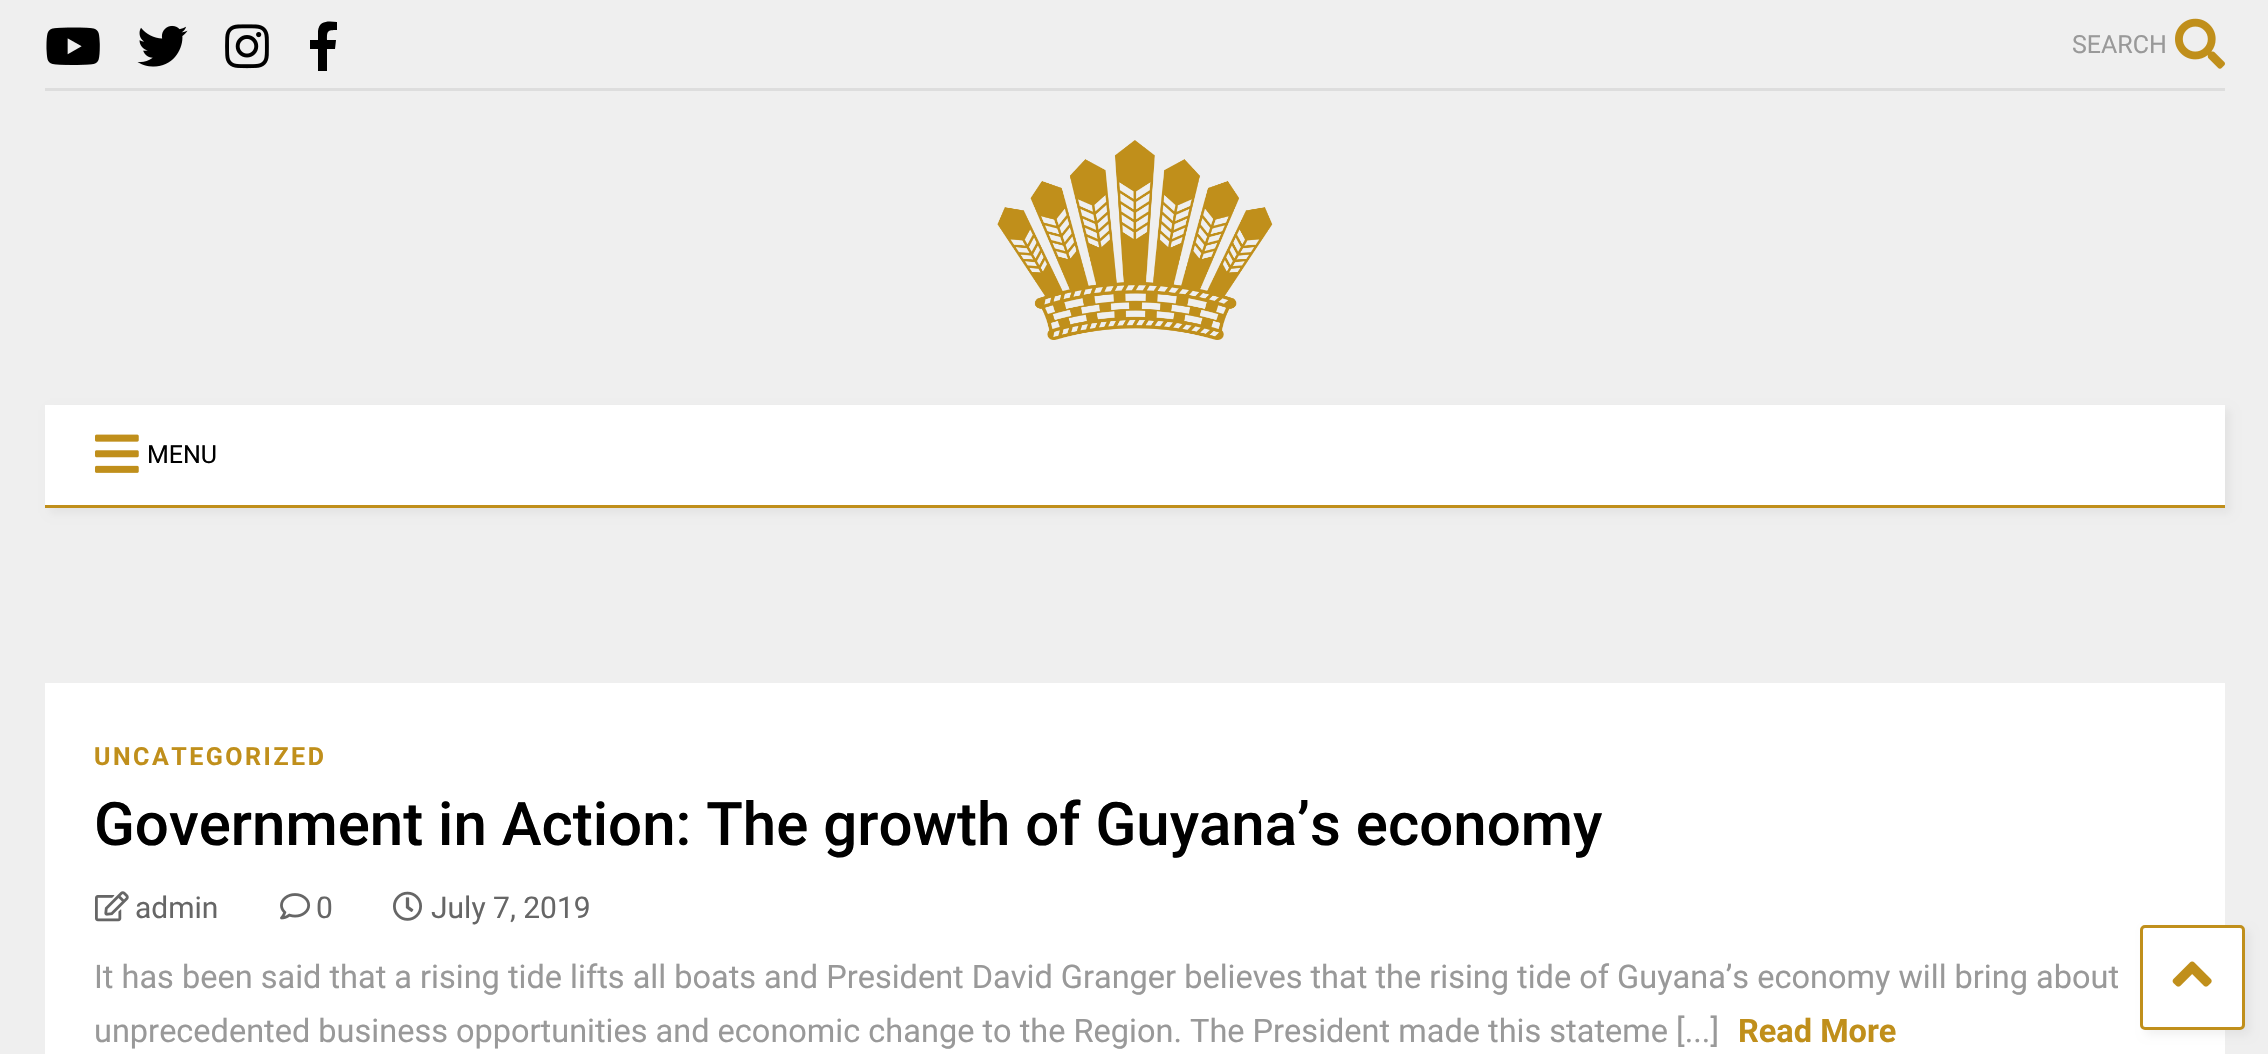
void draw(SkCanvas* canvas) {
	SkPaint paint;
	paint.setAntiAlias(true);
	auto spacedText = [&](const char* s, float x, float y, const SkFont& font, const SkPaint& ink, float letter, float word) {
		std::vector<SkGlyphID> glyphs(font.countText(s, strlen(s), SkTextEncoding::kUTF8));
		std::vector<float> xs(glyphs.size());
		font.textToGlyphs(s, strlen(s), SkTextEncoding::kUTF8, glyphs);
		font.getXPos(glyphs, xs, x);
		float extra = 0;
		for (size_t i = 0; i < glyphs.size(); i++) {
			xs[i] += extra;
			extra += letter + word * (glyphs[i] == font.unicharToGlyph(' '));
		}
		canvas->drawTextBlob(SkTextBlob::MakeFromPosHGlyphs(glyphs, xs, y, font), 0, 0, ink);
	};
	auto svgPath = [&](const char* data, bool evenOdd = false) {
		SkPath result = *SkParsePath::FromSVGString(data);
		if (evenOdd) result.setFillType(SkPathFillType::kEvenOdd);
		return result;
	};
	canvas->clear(0xffefefef);
	paint.setColor(0xffdddddd);
	canvas->drawRect(SkRect::MakeXYWH(45, 88, 2180, 3), paint);
	canvas->drawImageRect(SkImages::DeferredFromEncodedData(SkData::MakeFromFileName("img1.png")), SkRect::MakeXYWH(46, 27, 54, 38), SkSamplingOptions());
	canvas->drawImageRect(SkImages::DeferredFromEncodedData(SkData::MakeFromFileName("img2.png")), SkRect::MakeXYWH(137, 25, 51, 42), SkSamplingOptions());
	canvas->drawImageRect(SkImages::DeferredFromEncodedData(SkData::MakeFromFileName("img3.png")), SkRect::MakeXYWH(225, 24, 44, 45), SkSamplingOptions());
	paint.setColor(0xff000000);
	canvas->drawPath(svgPath("M335 49H327V71H318V49H310V40H318V31C319 20 329 21 337 22V30C327 30 327 31 327 40H336Z"), paint);
	SkFont f1(fontMgr->matchFamilyStyle("Roboto", SkFontStyle::Normal()), 25);
	f1.setSubpixel(true);
	paint.setColor(0xff999999);
	canvas->drawString("SEARCH", 2072, 53, f1, paint);
	canvas->drawImageRect(SkImages::DeferredFromEncodedData(SkData::MakeFromFileName("img4.png")), SkRect::MakeXYWH(2175, 18, 50, 51), SkSamplingOptions());
	canvas->drawImageRect(SkImages::DeferredFromEncodedData(SkData::MakeFromFileName("img5.png")), SkRect::MakeXYWH(997, 140, 276, 200), SkSamplingOptions());
	paint.setColor(0x0d000000);
	paint.setMaskFilter(SkMaskFilter::MakeBlur(kNormal_SkBlurStyle, 4));
	canvas->drawRect(SkRect::MakeXYWH(50, 410, 2180, 103), paint);
	paint.setMaskFilter(nullptr);
	paint.setColor(0xffffffff);
	canvas->drawRect(SkRect::MakeXYWH(45, 405, 2180, 100), paint);
	canvas->drawImageRect(SkImages::DeferredFromEncodedData(SkData::MakeFromFileName("img6.png")), SkRect::MakeXYWH(95, 434, 44, 39), SkSamplingOptions());
	paint.setColor(0xff000000);
	canvas->drawString("MENU", 147, 463, f1, paint);
	paint.setColor(0xffc08f1b);
	canvas->drawRect(SkRect::MakeXYWH(45, 505, 2180, 3), paint);
	paint.setColor(0xffffffff);
	canvas->drawRect(SkRect::MakeXYWH(45, 683, 2180, 371), paint);
	SkFont f2(fontMgr->matchFamilyStyle("Roboto", SkFontStyle::Bold()), 25);
	f2.setSubpixel(true);
	paint.setColor(0xffc08f1b);
	spacedText("UNCATEGORIZED", 94, 765, f2, paint, 2.5, 0);
	SkFont f3(fontMgr->matchFamilyStyle("Roboto", SkFontStyle(500, SkFontStyle::kNormal_Width, SkFontStyle::kUpright_Slant)), 60);
	f3.setSubpixel(true);
	paint.setColor(0xff000000);
	canvas->drawString("Government in Action: The growth of Guyana’s economy", 94, 845, f3, paint);
	canvas->drawImageRect(SkImages::DeferredFromEncodedData(SkData::MakeFromFileName("img7.png")), SkRect::MakeXYWH(95, 891, 34, 31), SkSamplingOptions());
	SkFont f4(fontMgr->matchFamilyStyle("Roboto", SkFontStyle::Normal()), 30);
	f4.setSubpixel(true);
	paint.setColor(0xff666666);
	canvas->drawString("admin", 135, 918, f4, paint);
	canvas->drawImageRect(SkImages::DeferredFromEncodedData(SkData::MakeFromFileName("img8.png")), SkRect::MakeXYWH(280, 893, 31, 27), SkSamplingOptions());
	canvas->drawString("0", 316, 918, f4, paint);
	canvas->drawImageRect(SkImages::DeferredFromEncodedData(SkData::MakeFromFileName("img9.png")), SkRect::MakeXYWH(393, 891, 29, 30), SkSamplingOptions());
	canvas->drawString("July 7, 2019", 431, 918, f4, paint);
	SkFont f5(fontMgr->matchFamilyStyle("Roboto", SkFontStyle::Normal()), 32.5);
	f5.setSubpixel(true);
	paint.setColor(0xff999999);
	canvas->drawString("It has been said that a rising tide lifts all boats and President David Granger believes that the rising tide of Guyana’s economy will bring about", 94, 988, f5, paint);
	canvas->drawString("unprecedented business opportunities and economic change to the Region. The President made this stateme [...]", 94, 1042, f5, paint);
	SkFont f6(fontMgr->matchFamilyStyle("Roboto", SkFontStyle::Bold()), 32.5);
	f6.setSubpixel(true);
	paint.setColor(0xffc08f1b);
	canvas->drawString("Read More", 1738, 1042, f6, paint);
	paint.setColor(0x0d000000);
	paint.setMaskFilter(SkMaskFilter::MakeBlur(kNormal_SkBlurStyle, 4));
	canvas->drawRoundRect(SkRect::MakeXYWH(2145, 930, 105, 105), 5, 5, paint);
	paint.setMaskFilter(nullptr);
	paint.setColor(0xffffffff);
	canvas->drawRoundRect(SkRect::MakeXYWH(2141.5, 926.5, 102, 102), 3.5, 3.5, paint);
	paint.setStroke(true);
	paint.setStrokeWidth(3);
	paint.setColor(0xffc08f1b);
	canvas->drawRoundRect(SkRect::MakeXYWH(2141.5, 926.5, 102, 102), 3.5, 3.5, paint);
	canvas->drawImageRect(SkImages::DeferredFromEncodedData(SkData::MakeFromFileName("img10.png")), SkRect::MakeXYWH(2172, 961, 40, 26), SkSamplingOptions());
}
